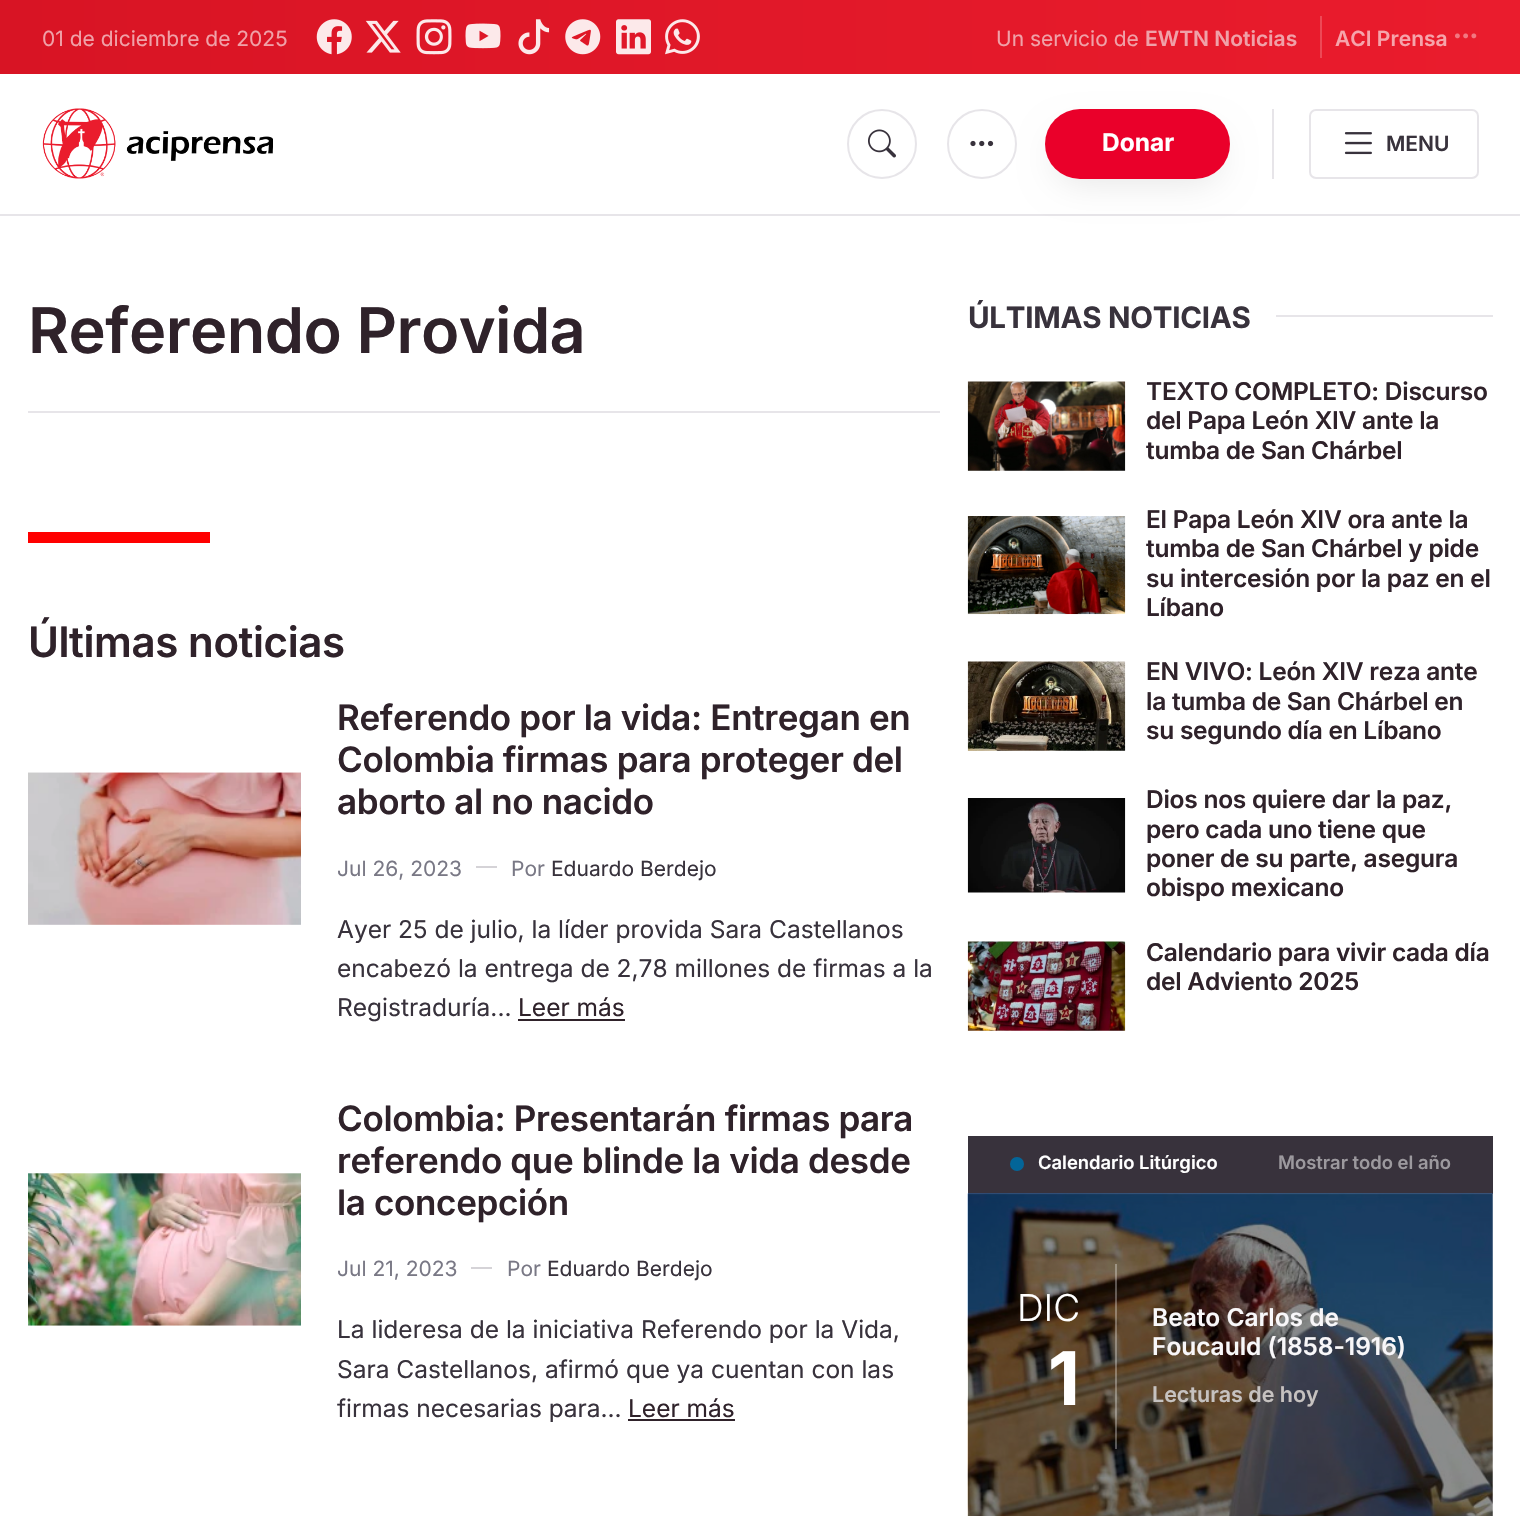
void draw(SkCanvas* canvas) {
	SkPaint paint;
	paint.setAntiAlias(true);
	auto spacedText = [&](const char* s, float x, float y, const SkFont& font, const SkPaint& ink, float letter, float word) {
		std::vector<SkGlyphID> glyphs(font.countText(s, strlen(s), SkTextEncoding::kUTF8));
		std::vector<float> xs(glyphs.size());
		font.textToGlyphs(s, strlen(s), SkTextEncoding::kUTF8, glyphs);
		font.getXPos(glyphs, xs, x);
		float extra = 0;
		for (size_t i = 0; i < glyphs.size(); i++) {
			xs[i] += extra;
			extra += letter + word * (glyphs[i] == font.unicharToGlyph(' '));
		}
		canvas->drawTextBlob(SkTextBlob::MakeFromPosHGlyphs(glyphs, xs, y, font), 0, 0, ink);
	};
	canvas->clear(0xffffffff);
	paint.setColor(0xffe7e5e9);
	canvas->drawRect(SkRect::MakeXYWH(0, 214, 1520, 2), paint);
	{
		const SkColor colors[] = {0xffea1c2d, 0xffd81424};
		const float stops[] = {0, 1};
		const SkPoint ends[] = {{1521, 37}, {0, 37}};
		paint.setShader(SkGradientShader::MakeLinear(ends, colors, stops, 2, SkTileMode::kClamp));
		paint.setAlpha(255);
	}
	canvas->drawRect(SkRect::MakeXYWH(0, 0, 1520, 74), paint);
	SkFont f1(fontMgr->matchFamilyStyle("Inter", SkFontStyle::Normal()), 21);
	f1.setSubpixel(true);
	paint.setShader(nullptr);
	paint.setColor(0xfff0a1a8);
	canvas->drawString("01 de diciembre de 2025", 42, 46, f1, paint);
	canvas->drawImageRect(SkImages::DeferredFromEncodedData(SkData::MakeFromFileName("img1.png")), SkRect::MakeXYWH(316, 19, 36, 36), SkSamplingOptions());
	canvas->drawImageRect(SkImages::DeferredFromEncodedData(SkData::MakeFromFileName("img2.png")), SkRect::MakeXYWH(365, 20, 36, 33), SkSamplingOptions());
	canvas->drawImageRect(SkImages::DeferredFromEncodedData(SkData::MakeFromFileName("img3.png")), SkRect::MakeXYWH(416, 19, 36, 36), SkSamplingOptions());
	canvas->drawImageRect(SkImages::DeferredFromEncodedData(SkData::MakeFromFileName("img4.png")), SkRect::MakeXYWH(465, 23, 36, 26), SkSamplingOptions());
	canvas->drawImageRect(SkImages::DeferredFromEncodedData(SkData::MakeFromFileName("img5.png")), SkRect::MakeXYWH(518, 19, 32, 36), SkSamplingOptions());
	canvas->drawImageRect(SkImages::DeferredFromEncodedData(SkData::MakeFromFileName("img6.png")), SkRect::MakeXYWH(565, 19, 36, 36), SkSamplingOptions());
	canvas->drawImageRect(SkImages::DeferredFromEncodedData(SkData::MakeFromFileName("img7.png")), SkRect::MakeXYWH(616, 19, 35, 36), SkSamplingOptions());
	canvas->drawImageRect(SkImages::DeferredFromEncodedData(SkData::MakeFromFileName("img8.png")), SkRect::MakeXYWH(665, 19, 35, 36), SkSamplingOptions());
	canvas->drawString("Un servicio de", 996, 46, f1, paint);
	SkFont f2(fontMgr->matchFamilyStyle("Inter", SkFontStyle(600, SkFontStyle::kNormal_Width, SkFontStyle::kUpright_Slant)), 21);
	f2.setSubpixel(true);
	canvas->drawString("EWTN Noticias", 1145, 46, f2, paint);
	paint.setColor(0xffed4956);
	canvas->drawRect(SkRect::MakeXYWH(1320, 16, 2, 42), paint);
	paint.setColor(0xfff6a4ab);
	canvas->drawString("ACI Prensa", 1335, 46, f2, paint);
	canvas->drawImageRect(SkImages::DeferredFromEncodedData(SkData::MakeFromFileName("img9.png")), SkRect::MakeXYWH(1455, 33, 22, 6), SkSamplingOptions());
	canvas->drawImageRect(SkImages::DeferredFromEncodedData(SkData::MakeFromFileName("img10.png")), SkRect::MakeXYWH(42, 108, 231, 71), SkSamplingOptions());
	paint.setStroke(true);
	paint.setStrokeWidth(2);
	paint.setColor(0xffe7e5e9);
	canvas->drawCircle(882, 144, 34, paint);
	canvas->drawImageRect(SkImages::DeferredFromEncodedData(SkData::MakeFromFileName("img11.png")), SkRect::MakeXYWH(868, 129, 28, 29), SkSamplingOptions());
	paint.setStroke(false);
	paint.setColor(0x1a000000);
	paint.setMaskFilter(SkMaskFilter::MakeBlur(kNormal_SkBlurStyle, 17.5));
	canvas->drawRoundRect(SkRect::MakeXYWH(1055, 133, 165, 49), 24.5, 24.5, paint);
	paint.setMaskFilter(nullptr);
	paint.setStroke(true);
	paint.setColor(0xffe7e5e9);
	canvas->drawCircle(982, 144, 34, paint);
	canvas->drawImageRect(SkImages::DeferredFromEncodedData(SkData::MakeFromFileName("img12.png")), SkRect::MakeXYWH(970, 140, 24, 7), SkSamplingOptions());
	paint.setStroke(false);
	paint.setColor(0xffea002a);
	canvas->drawRoundRect(SkRect::MakeXYWH(1045, 109, 185, 70), 35, 35, paint);
	SkFont f3(fontMgr->matchFamilyStyle("Inter", SkFontStyle::Bold()), 24.5);
	f3.setSubpixel(true);
	paint.setColor(0xffffffff);
	canvas->drawString("Donar", 1102, 151, f3, paint);
	paint.setColor(0xffe7e5e9);
	canvas->drawRect(SkRect::MakeXYWH(1272, 109, 2, 70), paint);
	paint.setStroke(true);
	canvas->drawRoundRect(SkRect::MakeXYWH(1310, 110, 168, 68), 6, 6, paint);
	canvas->drawImageRect(SkImages::DeferredFromEncodedData(SkData::MakeFromFileName("img13.png")), SkRect::MakeXYWH(1344, 132, 28, 23), SkSamplingOptions());
	paint.setStroke(false);
	paint.setColor(0xff38323c);
	canvas->drawString("MENU", 1386, 151, f2, paint);
	SkFont f4(fontMgr->matchFamilyStyle("Inter", SkFontStyle(600, SkFontStyle::kNormal_Width, SkFontStyle::kUpright_Slant)), 63);
	f4.setSubpixel(true);
	paint.setColor(0xff2f222a);
	spacedText("Referendo Provida", 28, 353, f4, paint, -0.6, 0);
	paint.setColor(0xffe7e5e9);
	canvas->drawRect(SkRect::MakeXYWH(28, 411, 912, 2), paint);
	paint.setColor(0xffff0000);
	canvas->drawRect(SkRect::MakeXYWH(28, 532, 182, 11), paint);
	SkFont f5(fontMgr->matchFamilyStyle("Inter", SkFontStyle(600, SkFontStyle::kNormal_Width, SkFontStyle::kUpright_Slant)), 42);
	f5.setSubpixel(true);
	paint.setColor(0xff2f222a);
	spacedText("Últimas noticias", 28, 657, f5, paint, -0.4, 0);
	canvas->drawImageRect(SkImages::DeferredFromEncodedData(SkData::MakeFromFileName("img14.png")), SkRect::MakeXYWH(28, 772, 273, 153), SkSamplingOptions());
	SkFont f6(fontMgr->matchFamilyStyle("Inter", SkFontStyle(600, SkFontStyle::kNormal_Width, SkFontStyle::kUpright_Slant)), 35);
	f6.setSubpixel(true);
	spacedText("Referendo por la vida: Entregan en", 337, 730, f6, paint, -0.35, 0);
	spacedText("Colombia firmas para proteger del", 337, 772, f6, paint, -0.35, 0);
	spacedText("aborto al no nacido", 337, 814, f6, paint, -0.35, 0);
	paint.setColor(0xff797885);
	canvas->drawString("Jul 26, 2023", 337, 876, f1, paint);
	paint.setColor(0xffd5d3d7);
	canvas->drawRect(SkRect::MakeXYWH(476, 866, 21, 2), paint);
	paint.setColor(0xff797885);
	canvas->drawString("Por", 511, 876, f1, paint);
	paint.setColor(0xff38323c);
	canvas->drawString("Eduardo Berdejo", 551, 876, f1, paint);
	SkFont f7(fontMgr->matchFamilyStyle("Inter", SkFontStyle::Normal()), 24.5);
	f7.setSubpixel(true);
	canvas->drawString("Ayer 25 de julio, la líder provida Sara Castellanos", 337, 938, f7, paint);
	canvas->drawString("encabezó la entrega de 2,78 millones de firmas a la", 337, 977, f7, paint);
	canvas->drawString("Registraduría...", 337, 1016, f7, paint);
	paint.setColor(0xff2f222a);
	canvas->drawString("Leer más", 518, 1016, f7, paint);
	canvas->drawRect(SkRect::MakeXYWH(518, 1019, 107, 2), paint);
	canvas->drawImageRect(SkImages::DeferredFromEncodedData(SkData::MakeFromFileName("img15.png")), SkRect::MakeXYWH(28, 1173, 273, 153), SkSamplingOptions());
	spacedText("Colombia: Presentarán firmas para", 337, 1131, f6, paint, -0.35, 0);
	spacedText("referendo que blinde la vida desde", 337, 1173, f6, paint, -0.35, 0);
	spacedText("la concepción", 337, 1215, f6, paint, -0.35, 0);
	paint.setColor(0xff797885);
	canvas->drawString("Jul 21, 2023", 337, 1276, f1, paint);
	paint.setColor(0xffd5d3d7);
	canvas->drawRect(SkRect::MakeXYWH(471, 1267, 21, 2), paint);
	paint.setColor(0xff797885);
	canvas->drawString("Por", 507, 1276, f1, paint);
	paint.setColor(0xff38323c);
	canvas->drawString("Eduardo Berdejo", 547, 1276, f1, paint);
	canvas->drawString("La lideresa de la iniciativa Referendo por la Vida,", 337, 1338, f7, paint);
	canvas->drawString("Sara Castellanos, afirmó que ya cuentan con las", 337, 1378, f7, paint);
	canvas->drawString("firmas necesarias para...", 337, 1417, f7, paint);
	paint.setColor(0xff2f222a);
	canvas->drawString("Leer más", 628, 1417, f7, paint);
	canvas->drawRect(SkRect::MakeXYWH(628, 1419, 107, 2), paint);
	SkFont f8(fontMgr->matchFamilyStyle("Inter", SkFontStyle::Bold()), 29.5);
	f8.setSubpixel(true);
	paint.setColor(0xff38323c);
	spacedText("ÚLTIMAS NOTICIAS", 968, 328, f8, paint, -0.25, 0);
	paint.setColor(0xffe7e5e9);
	canvas->drawRect(SkRect::MakeXYWH(1276, 315, 217, 2), paint);
	canvas->drawImageRect(SkImages::DeferredFromEncodedData(SkData::MakeFromFileName("img16.png")), SkRect::MakeXYWH(967, 381, 159, 90), SkSamplingOptions());
	SkFont f9(fontMgr->matchFamilyStyle("Inter", SkFontStyle(600, SkFontStyle::kNormal_Width, SkFontStyle::kUpright_Slant)), 24.5);
	f9.setSubpixel(true);
	paint.setColor(0xff2f222a);
	spacedText("TEXTO COMPLETO: Discurso", 1146, 400, f9, paint, -0.25, 0);
	spacedText("del Papa León XIV ante la", 1146, 429, f9, paint, -0.25, 0);
	spacedText("tumba de San Chárbel", 1146, 459, f9, paint, -0.25, 0);
	canvas->drawImageRect(SkImages::DeferredFromEncodedData(SkData::MakeFromFileName("img17.png")), SkRect::MakeXYWH(967, 516, 159, 99), SkSamplingOptions());
	spacedText("El Papa León XIV ora ante la", 1146, 528, f9, paint, -0.25, 0);
	spacedText("tumba de San Chárbel y pide", 1146, 557, f9, paint, -0.25, 0);
	spacedText("su intercesión por la paz en el", 1146, 587, f9, paint, -0.25, 0);
	spacedText("Líbano", 1146, 616, f9, paint, -0.25, 0);
	canvas->drawImageRect(SkImages::DeferredFromEncodedData(SkData::MakeFromFileName("img18.png")), SkRect::MakeXYWH(967, 661, 159, 90), SkSamplingOptions());
	spacedText("EN VIVO: León XIV reza ante", 1146, 680, f9, paint, -0.25, 0);
	spacedText("la tumba de San Chárbel en", 1146, 710, f9, paint, -0.25, 0);
	spacedText("su segundo día en Líbano", 1146, 739, f9, paint, -0.25, 0);
	canvas->drawImageRect(SkImages::DeferredFromEncodedData(SkData::MakeFromFileName("img19.png")), SkRect::MakeXYWH(967, 798, 159, 95), SkSamplingOptions());
	spacedText("Dios nos quiere dar la paz,", 1146, 808, f9, paint, -0.25, 0);
	spacedText("pero cada uno tiene que", 1146, 838, f9, paint, -0.25, 0);
	spacedText("poner de su parte, asegura", 1146, 867, f9, paint, -0.25, 0);
	spacedText("obispo mexicano", 1146, 896, f9, paint, -0.25, 0);
	canvas->drawImageRect(SkImages::DeferredFromEncodedData(SkData::MakeFromFileName("img20.png")), SkRect::MakeXYWH(967, 941, 159, 90), SkSamplingOptions());
	spacedText("Calendario para vivir cada día", 1146, 961, f9, paint, -0.25, 0);
	spacedText("del Adviento 2025", 1146, 990, f9, paint, -0.25, 0);
	paint.setColor(0xff38323c);
	canvas->drawRect(SkRect::MakeXYWH(968, 1136, 525, 58), paint);
	paint.setColor(0xff036598);
	canvas->drawCircle(1017, 1164, 7, paint);
	SkFont f10(fontMgr->matchFamilyStyle("Inter", SkFontStyle(600, SkFontStyle::kNormal_Width, SkFontStyle::kUpright_Slant)), 18.4);
	f10.setSubpixel(true);
	paint.setColor(0xffffffff);
	canvas->drawString("Calendario Litúrgico", 1038, 1169, f10, paint);
	paint.setColor(0xff9c999e);
	canvas->drawString("Mostrar todo el año", 1278, 1169, f10, paint);
	canvas->drawImageRect(SkImages::DeferredFromEncodedData(SkData::MakeFromFileName("img21.png")), SkRect::MakeXYWH(967, 1193, 526, 323), SkSamplingOptions());
	paint.setColor(0x4dffffff);
	canvas->drawRect(SkRect::MakeXYWH(1115, 1264, 2, 185), paint);
	SkFont f11(fontMgr->matchFamilyStyle("Inter", SkFontStyle(300, SkFontStyle::kNormal_Width, SkFontStyle::kUpright_Slant)), 37);
	f11.setSubpixel(true);
	paint.setColor(0xffffffff);
	canvas->drawString("DIC", 1017, 1321, f11, paint);
	SkFont f12(fontMgr->matchFamilyStyle("Inter", SkFontStyle::Bold()), 74);
	f12.setSubpixel(true);
	canvas->drawString("1", 1048, 1405, f12, paint);
	paint.setColor(0xfff8f7f9);
	canvas->drawString("Beato Carlos de", 1152, 1326, f9, paint);
	canvas->drawString("Foucauld (1858-1916)", 1152, 1355, f9, paint);
	SkFont f13(fontMgr->matchFamilyStyle("Inter", SkFontStyle(600, SkFontStyle::kNormal_Width, SkFontStyle::kUpright_Slant)), 21.5);
	f13.setSubpixel(true);
	paint.setColor(0xffc6c2c0);
	canvas->drawString("Lecturas de hoy", 1152, 1402, f13, paint);
}
